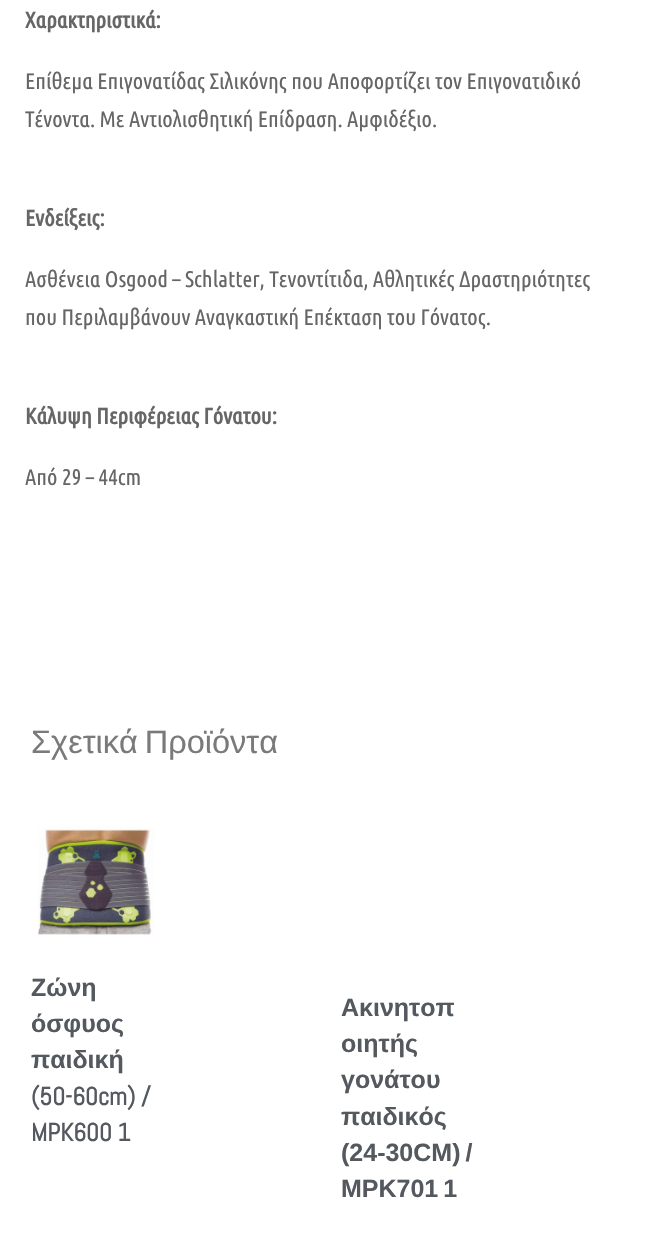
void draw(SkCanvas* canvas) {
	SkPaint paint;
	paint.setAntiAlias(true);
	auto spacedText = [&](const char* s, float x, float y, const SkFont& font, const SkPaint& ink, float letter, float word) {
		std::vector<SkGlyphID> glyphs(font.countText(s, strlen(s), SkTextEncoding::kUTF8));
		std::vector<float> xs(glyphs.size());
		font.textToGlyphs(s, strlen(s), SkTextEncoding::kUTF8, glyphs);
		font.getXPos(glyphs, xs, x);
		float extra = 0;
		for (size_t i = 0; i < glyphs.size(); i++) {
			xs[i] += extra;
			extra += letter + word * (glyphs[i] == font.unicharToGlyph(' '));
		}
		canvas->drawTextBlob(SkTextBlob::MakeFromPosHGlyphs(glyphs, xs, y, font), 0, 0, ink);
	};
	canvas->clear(0xffffffff);
	SkFont f1(fontMgr->matchFamilyStyle("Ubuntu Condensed", SkFontStyle::Bold()), 22.5);
	f1.setSubpixel(true);
	paint.setColor(0xff666666);
	canvas->drawString("Χαρακτηριστικά:", 25, 28, f1, paint);
	SkFont f2(fontMgr->matchFamilyStyle("Ubuntu Condensed", SkFontStyle::Normal()), 22.5);
	f2.setSubpixel(true);
	canvas->drawString("Επίθεμα Επιγονατίδας Σιλικόνης που Αποφορτίζει τον Επιγονατιδικό", 25, 89, f2, paint);
	canvas->drawString("Τένοντα. Με Αντιολισθητική Επίδραση. Αμφιδέξιο.", 25, 127, f2, paint);
	canvas->drawString("Ενδείξεις:", 25, 226, f1, paint);
	canvas->drawString("Ασθένεια Osgood – Schlatter, Τενοντίτιδα, Αθλητικές Δραστηριότητες", 25, 287, f2, paint);
	canvas->drawString("που Περιλαμβάνουν Αναγκαστική Επέκταση του Γόνατος.", 25, 325, f2, paint);
	canvas->drawString("Κάλυψη Περιφέρειας Γόνατου:", 25, 424, f1, paint);
	canvas->drawString("Aπό 29 – 44cm", 25, 485, f2, paint);
	SkFont f3(fontMgr->matchFamilyStyle("Liberation Sans", SkFontStyle::Normal()), 32.5);
	f3.setSubpixel(true);
	paint.setColor(0xff7a7a7a);
	spacedText("Σχετικά Προϊόντα", 31, 753, f3, paint, 0, -2);
	canvas->drawImageRect(SkImages::DeferredFromEncodedData(SkData::MakeFromFileName("img1.png")), SkRect::MakeXYWH(38, 826, 117, 109), SkSamplingOptions());
	SkFont f4(fontMgr->matchFamilyStyle("Liberation Sans", SkFontStyle::Bold()), 25);
	f4.setSubpixel(true);
	paint.setColor(0xff54595f);
	canvas->drawString("Ζώνη", 31, 996, f4, paint);
	canvas->drawString("όσφυος", 31, 1032, f4, paint);
	canvas->drawString("παιδική", 31, 1068, f4, paint);
	SkFont f5(fontMgr->matchFamilyStyle("Abel", SkFontStyle::Bold()), 25);
	f5.setSubpixel(true);
	canvas->drawString("(50-60cm) /", 31, 1105, f5, paint);
	canvas->drawString("MPK600 1", 31, 1141, f5, paint);
	canvas->drawString("Ακινητοπ", 341, 1016, f4, paint);
	canvas->drawString("οιητής", 341, 1052, f4, paint);
	canvas->drawString("γονάτου", 341, 1088, f4, paint);
	canvas->drawString("παιδικός", 341, 1125, f4, paint);
	spacedText("(24-30CM) /", 341, 1161, f4, paint, 0, -2);
	spacedText("MPK701 1", 341, 1197, f4, paint, 0, -2);
}
